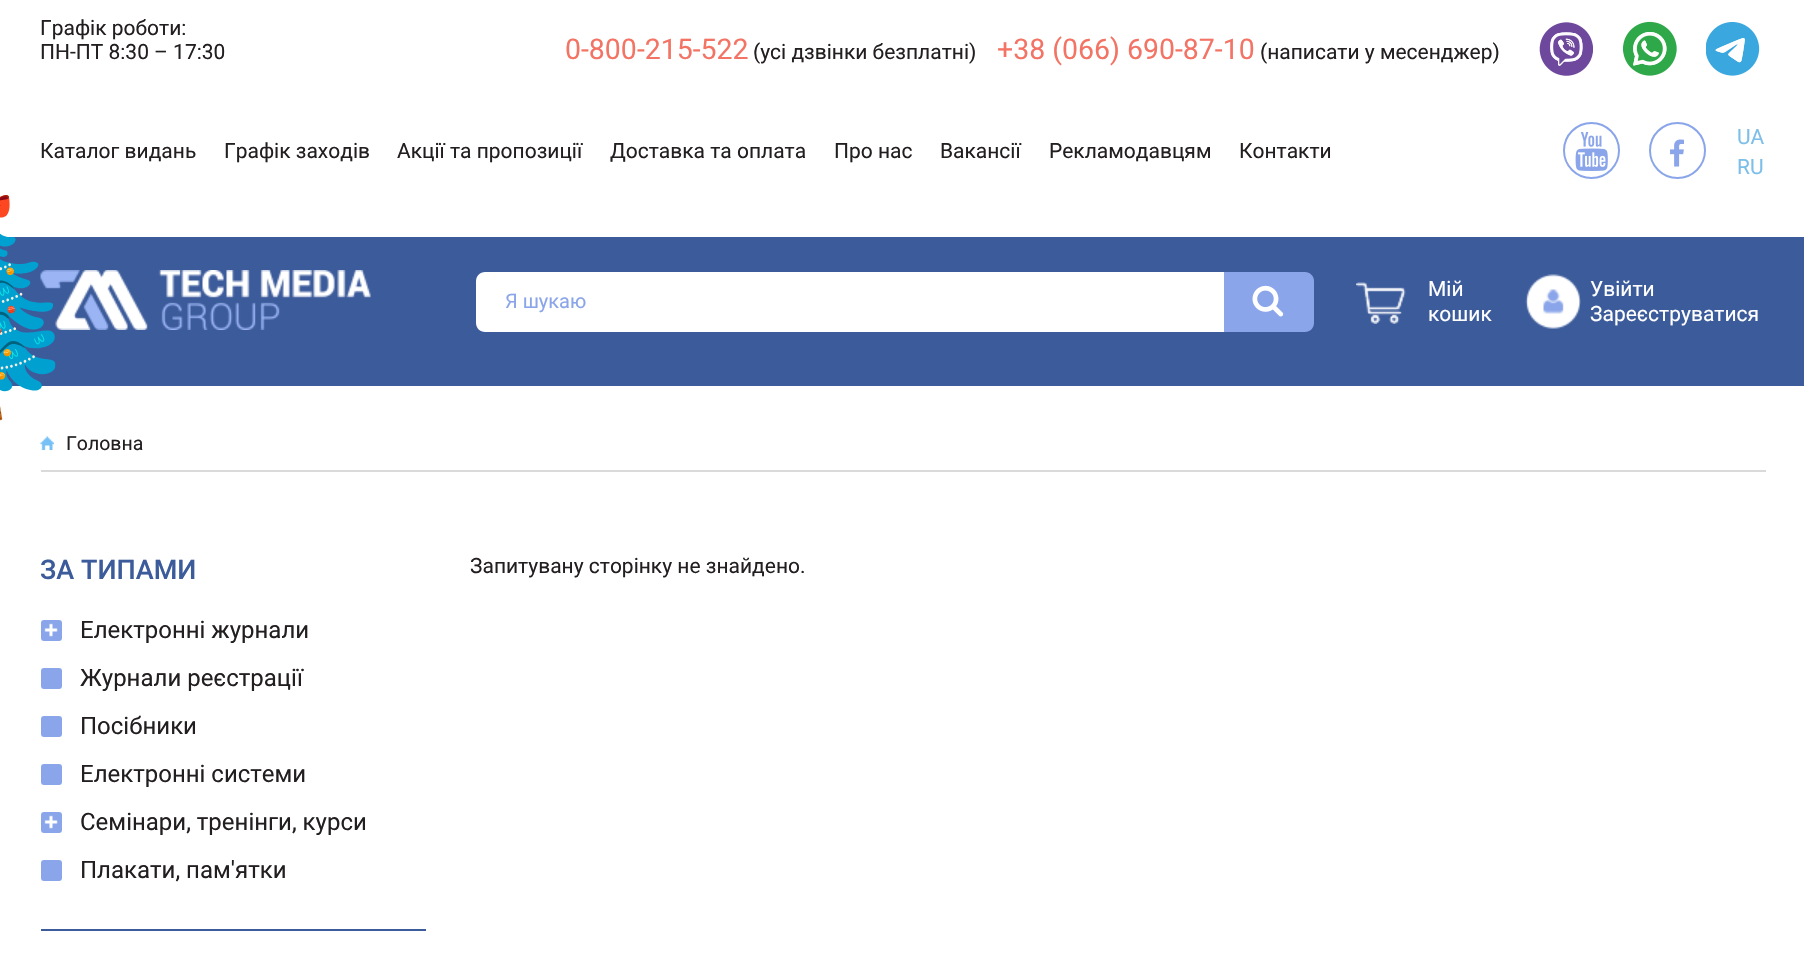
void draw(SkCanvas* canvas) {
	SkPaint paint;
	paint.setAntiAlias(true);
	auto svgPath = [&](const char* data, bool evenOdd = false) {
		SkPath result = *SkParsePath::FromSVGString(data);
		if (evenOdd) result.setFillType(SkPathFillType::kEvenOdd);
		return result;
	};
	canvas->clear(0xffffffff);
	SkFont f1(fontMgr->matchFamilyStyle("Roboto", SkFontStyle::Normal()), 21);
	f1.setSubpixel(true);
	paint.setColor(0xff231f20);
	canvas->drawString("Графік роботи:", 40, 35, f1, paint);
	canvas->drawString("ПН-ПТ 8:30 – 17:30", 40, 59, f1, paint);
	SkFont f2(fontMgr->matchFamilyStyle("Roboto", SkFontStyle::Normal()), 28.5);
	f2.setSubpixel(true);
	paint.setColor(0xfff37465);
	canvas->drawString("0-800-215-522", 565, 59, f2, paint);
	paint.setColor(0xff231f20);
	canvas->drawString("(усі дзвінки безплатні)", 753, 59, f1, paint);
	paint.setColor(0xfff37465);
	canvas->drawString("+38 (066) 690-87-10", 997, 59, f2, paint);
	paint.setColor(0xff231f20);
	canvas->drawString("(написати у месенджер)", 1260, 59, f1, paint);
	canvas->drawImageRect(SkImages::DeferredFromEncodedData(SkData::MakeFromFileName("img1.png")), SkRect::MakeXYWH(1539, 22, 54, 54), SkSamplingOptions());
	canvas->drawImageRect(SkImages::DeferredFromEncodedData(SkData::MakeFromFileName("img2.png")), SkRect::MakeXYWH(1623, 21, 54, 55), SkSamplingOptions());
	canvas->drawImageRect(SkImages::DeferredFromEncodedData(SkData::MakeFromFileName("img3.png")), SkRect::MakeXYWH(1706, 22, 54, 54), SkSamplingOptions());
	paint.setStroke(true);
	paint.setStrokeWidth(2);
	paint.setColor(0xff8aa5e9);
	canvas->drawCircle(1591.5, 150.5, 27.5, paint);
	canvas->drawImageRect(SkImages::DeferredFromEncodedData(SkData::MakeFromFileName("img4.png")), SkRect::MakeXYWH(1575, 132, 33, 39), SkSamplingOptions());
	canvas->drawCircle(1677.5, 150.5, 27.5, paint);
	canvas->drawImageRect(SkImages::DeferredFromEncodedData(SkData::MakeFromFileName("img5.png")), SkRect::MakeXYWH(1670, 139, 14, 28), SkSamplingOptions());
	paint.setStroke(false);
	paint.setColor(0xff231f20);
	canvas->drawString("Каталог видань", 40, 158, f1, paint);
	canvas->drawString("Графік заходів", 224, 158, f1, paint);
	canvas->drawString("Акції та пропозиції", 397, 158, f1, paint);
	canvas->drawString("Доставка та оплата", 610, 158, f1, paint);
	canvas->drawString("Про нас", 834, 158, f1, paint);
	canvas->drawString("Вакансії", 940, 158, f1, paint);
	canvas->drawString("Рекламодавцям", 1049, 158, f1, paint);
	canvas->drawString("Контакти", 1239, 158, f1, paint);
	paint.setColor(0xff7dbfe8);
	canvas->drawString("UA", 1737, 144, f1, paint);
	canvas->drawString("RU", 1737, 174, f1, paint);
	paint.setColor(0xff3c5b9b);
	canvas->drawRect(SkRect::MakeXYWH(0, 237, 1804, 149), paint);
	canvas->drawImageRect(SkImages::DeferredFromEncodedData(SkData::MakeFromFileName("img7.png")), SkRect::MakeXYWH(40, 270, 331, 60), SkSamplingOptions());
	canvas->drawImageRect(SkImages::DeferredFromEncodedData(SkData::MakeFromFileName("img6.png")), SkRect::MakeXYWH(0, 195, 56, 226), SkSamplingOptions());
	paint.setColor(0xffffffff);
	canvas->drawPath(svgPath("M485 272H1224V332H485C480 332 476 328 476 323V281C476 276 480 272 485 272Z"), paint);
	SkFont f3(fontMgr->matchFamilyStyle("Roboto", SkFontStyle::Normal()), 20);
	f3.setSubpixel(true);
	paint.setColor(0xff8aa5e9);
	canvas->drawString("Я шукаю", 505, 308, f3, paint);
	canvas->drawPath(svgPath("M1224 272H1305C1310 272 1314 276 1314 281V323C1314 328 1310 332 1305 332H1224Z"), paint);
	canvas->drawImageRect(SkImages::DeferredFromEncodedData(SkData::MakeFromFileName("img8.png")), SkRect::MakeXYWH(1252, 285, 32, 32), SkSamplingOptions());
	canvas->drawImageRect(SkImages::DeferredFromEncodedData(SkData::MakeFromFileName("img9.png")), SkRect::MakeXYWH(1356, 282, 50, 42), SkSamplingOptions());
	paint.setColor(0xffffffff);
	canvas->drawString("Мій", 1428, 296, f1, paint);
	canvas->drawString("кошик", 1428, 321, f1, paint);
	canvas->drawImageRect(SkImages::DeferredFromEncodedData(SkData::MakeFromFileName("img10.png")), SkRect::MakeXYWH(1525, 274, 56, 55), SkSamplingOptions());
	canvas->drawString("Увійти", 1590, 296, f1, paint);
	canvas->drawString("Зареєструватися", 1590, 321, f1, paint);
	paint.setColor(0xffdadada);
	canvas->drawRect(SkRect::MakeXYWH(41, 470, 1725, 2), paint);
	canvas->drawImageRect(SkImages::DeferredFromEncodedData(SkData::MakeFromFileName("img11.png")), SkRect::MakeXYWH(40, 436, 14, 14), SkSamplingOptions());
	SkFont f4(fontMgr->matchFamilyStyle("Roboto", SkFontStyle::Normal()), 19.5);
	f4.setSubpixel(true);
	paint.setColor(0xff231f20);
	canvas->drawString("Головна", 66, 450, f4, paint);
	SkFont f5(fontMgr->matchFamilyStyle("Roboto", SkFontStyle(500, SkFontStyle::kNormal_Width, SkFontStyle::kUpright_Slant)), 27);
	f5.setSubpixel(true);
	paint.setColor(0xff3c5b9b);
	canvas->drawString("ЗА ТИПАМИ", 40, 579, f5, paint);
	canvas->drawRect(SkRect::MakeXYWH(41, 929, 385, 2), paint);
	paint.setColor(0xff8aa5e9);
	canvas->drawRoundRect(SkRect::MakeXYWH(41, 620, 21, 21), 3, 3, paint);
	canvas->drawImageRect(SkImages::DeferredFromEncodedData(SkData::MakeFromFileName("img12.png")), SkRect::MakeXYWH(44, 623, 14, 14), SkSamplingOptions());
	SkFont f6(fontMgr->matchFamilyStyle("Roboto", SkFontStyle::Normal()), 24);
	f6.setSubpixel(true);
	paint.setColor(0xff231f20);
	canvas->drawString("Електронні журнали", 80, 638, f6, paint);
	paint.setColor(0xff8aa5e9);
	canvas->drawRoundRect(SkRect::MakeXYWH(41, 668, 21, 21), 3, 3, paint);
	paint.setColor(0xff231f20);
	canvas->drawString("Журнали реєстрації", 80, 686, f6, paint);
	paint.setColor(0xff8aa5e9);
	canvas->drawRoundRect(SkRect::MakeXYWH(41, 716, 21, 21), 3, 3, paint);
	paint.setColor(0xff231f20);
	canvas->drawString("Посібники", 80, 734, f6, paint);
	paint.setColor(0xff8aa5e9);
	canvas->drawRoundRect(SkRect::MakeXYWH(41, 764, 21, 21), 3, 3, paint);
	paint.setColor(0xff231f20);
	canvas->drawString("Електронні системи", 80, 782, f6, paint);
	paint.setColor(0xff8aa5e9);
	canvas->drawRoundRect(SkRect::MakeXYWH(41, 812, 21, 21), 3, 3, paint);
	canvas->drawImageRect(SkImages::DeferredFromEncodedData(SkData::MakeFromFileName("img12.png")), SkRect::MakeXYWH(44, 815, 14, 14), SkSamplingOptions());
	paint.setColor(0xff231f20);
	canvas->drawString("Семінари, тренінги, курси", 80, 830, f6, paint);
	paint.setColor(0xff8aa5e9);
	canvas->drawRoundRect(SkRect::MakeXYWH(41, 860, 21, 21), 3, 3, paint);
	paint.setColor(0xff231f20);
	canvas->drawString("Плакати, пам'ятки", 80, 878, f6, paint);
	canvas->drawString("Запитувану сторінку не знайдено.", 470, 573, f1, paint);
}
